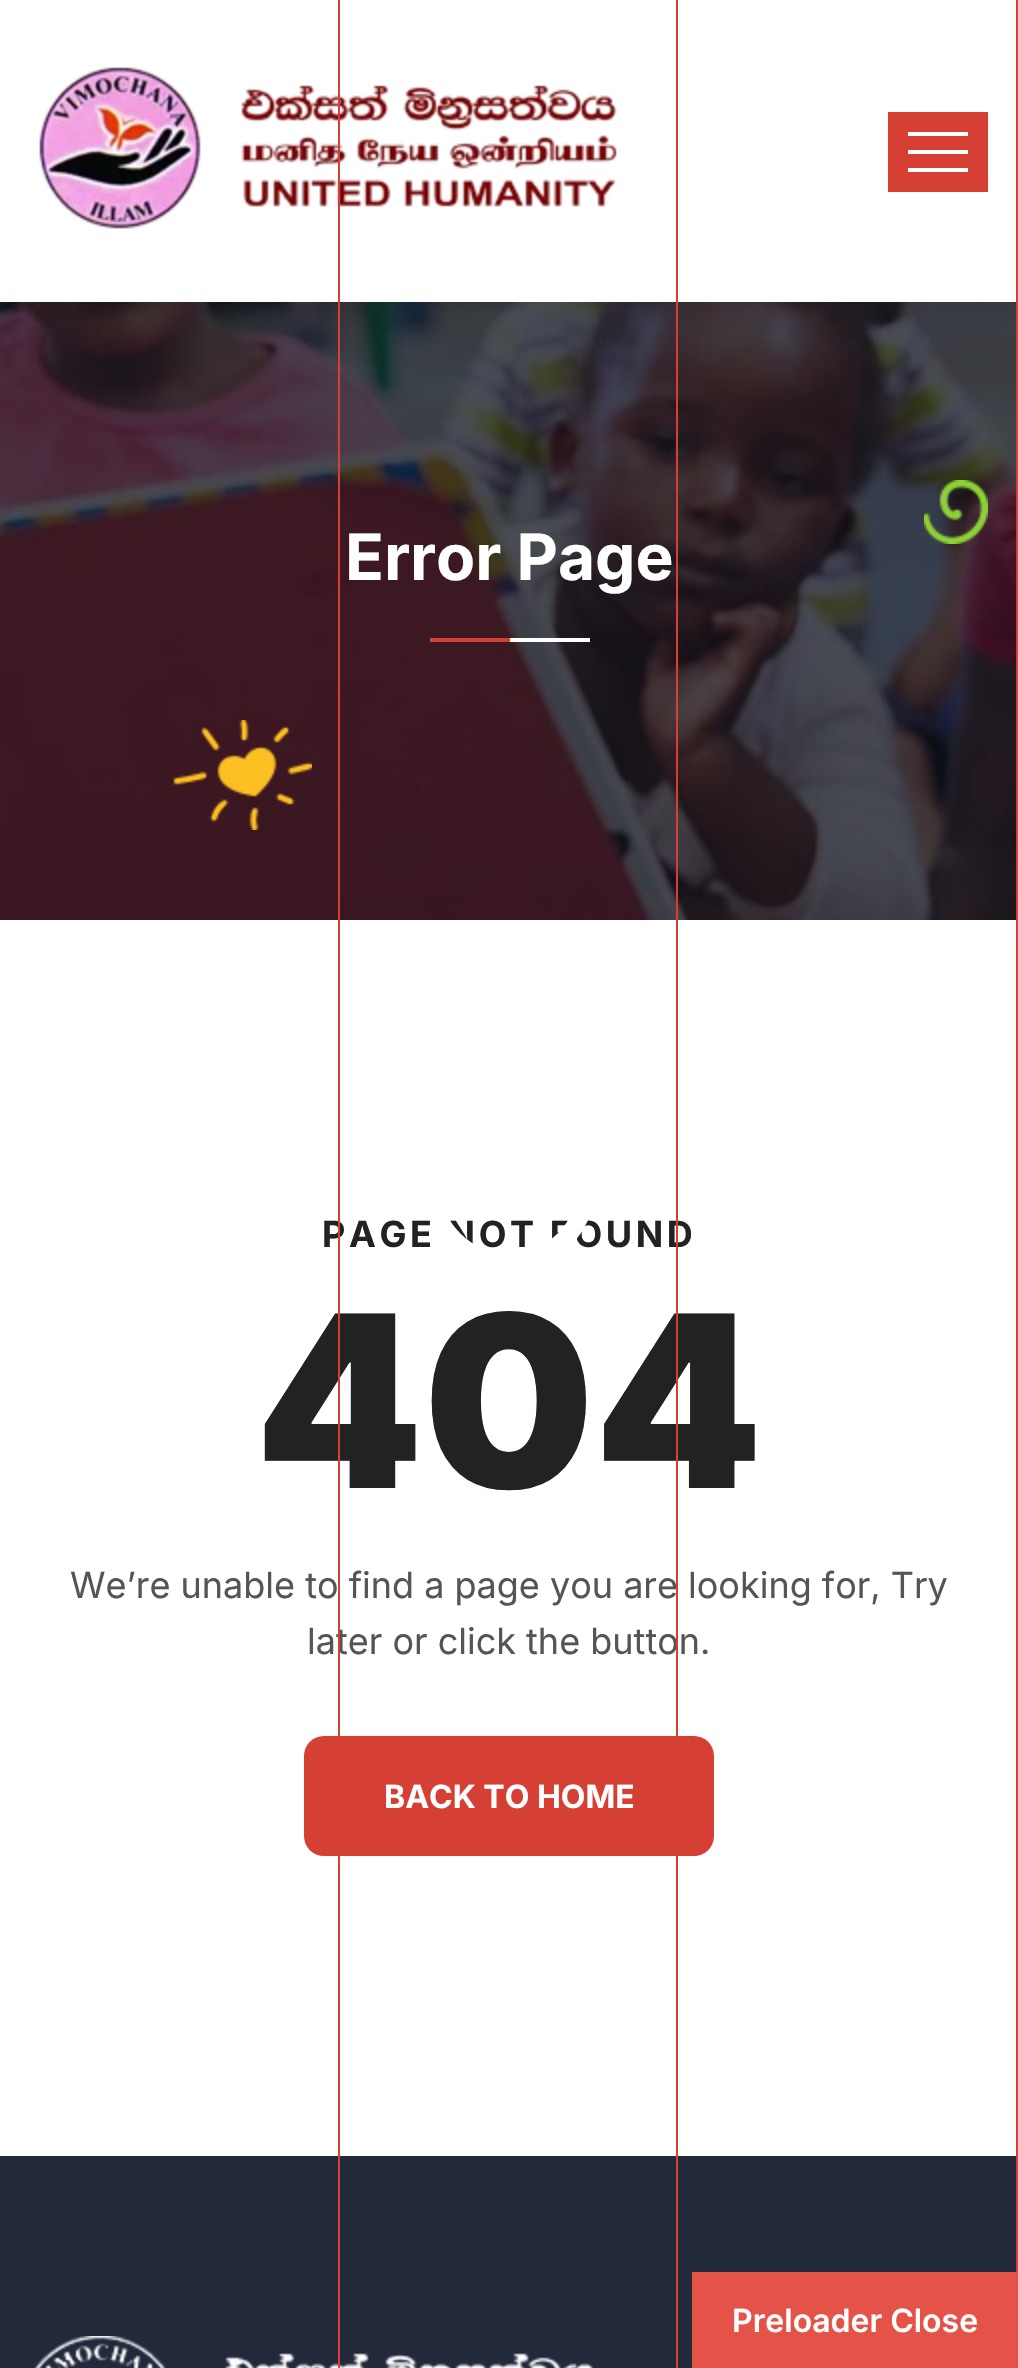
void draw(SkCanvas* canvas) {
	SkPaint paint;
	paint.setAntiAlias(true);
	auto spacedText = [&](const char* s, float x, float y, const SkFont& font, const SkPaint& ink, float letter, float word) {
		std::vector<SkGlyphID> glyphs(font.countText(s, strlen(s), SkTextEncoding::kUTF8));
		std::vector<float> xs(glyphs.size());
		font.textToGlyphs(s, strlen(s), SkTextEncoding::kUTF8, glyphs);
		font.getXPos(glyphs, xs, x);
		float extra = 0;
		for (size_t i = 0; i < glyphs.size(); i++) {
			xs[i] += extra;
			extra += letter + word * (glyphs[i] == font.unicharToGlyph(' '));
		}
		canvas->drawTextBlob(SkTextBlob::MakeFromPosHGlyphs(glyphs, xs, y, font), 0, 0, ink);
	};
	auto svgPath = [&](const char* data, bool evenOdd = false) {
		SkPath result = *SkParsePath::FromSVGString(data);
		if (evenOdd) result.setFillType(SkPathFillType::kEvenOdd);
		return result;
	};
	canvas->clear(0xffffffff);
	canvas->drawImageRect(SkImages::DeferredFromEncodedData(SkData::MakeFromFileName("img1.png")), SkRect::MakeXYWH(39, 67, 578, 162), SkSamplingOptions());
	paint.setColor(0xffd53f34);
	canvas->drawRect(SkRect::MakeXYWH(888, 112, 100, 80), paint);
	paint.setColor(0xffffffff);
	canvas->drawRect(SkRect::MakeXYWH(908, 132, 60, 4), paint);
	canvas->drawRect(SkRect::MakeXYWH(908, 150, 60, 4), paint);
	canvas->drawRect(SkRect::MakeXYWH(908, 168, 60, 4), paint);
	canvas->drawImageRect(SkImages::DeferredFromEncodedData(SkData::MakeFromFileName("img2.png")), SkRect::MakeXYWH(0, 302, 1016, 618), SkSamplingOptions());
	canvas->drawImageRect(SkImages::DeferredFromEncodedData(SkData::MakeFromFileName("img3.png")), SkRect::MakeXYWH(924, 480, 64, 64), SkSamplingOptions());
	SkFont f1(fontMgr->matchFamilyStyle("Inter", SkFontStyle::Bold()), 64);
	f1.setSubpixel(true);
	canvas->drawString("Error Page", 345, 580, f1, paint);
	canvas->drawRect(SkRect::MakeXYWH(510, 638, 80, 4), paint);
	paint.setColor(0xffd53f34);
	canvas->drawRect(SkRect::MakeXYWH(430, 638, 80, 4), paint);
	canvas->drawImageRect(SkImages::DeferredFromEncodedData(SkData::MakeFromFileName("img4.png")), SkRect::MakeXYWH(173, 720, 139, 110), SkSamplingOptions());
	SkFont f2(fontMgr->matchFamilyStyle("Inter", SkFontStyle::Bold()), 36);
	f2.setSubpixel(true);
	paint.setColor(0xff222222);
	spacedText("PAGE NOT FOUND", 322, 1247, f2, paint, 3.6, 0);
	SkFont f3(fontMgr->matchFamilyStyle("Inter", SkFontStyle(900, SkFontStyle::kNormal_Width, SkFontStyle::kUpright_Slant)), 240);
	f3.setSubpixel(true);
	canvas->drawString("404", 255, 1488, f3, paint);
	SkFont f4(fontMgr->matchFamilyStyle("Inter", SkFontStyle::Normal()), 36);
	f4.setSubpixel(true);
	paint.setColor(0xff555555);
	canvas->drawString("We’re unable to find a page you are looking for, Try", 70, 1598, f4, paint);
	canvas->drawString("later or click the button.", 307, 1654, f4, paint);
	paint.setColor(0xffd53f34);
	canvas->drawRoundRect(SkRect::MakeXYWH(304, 1736, 410, 120), 20, 20, paint);
	SkFont f5(fontMgr->matchFamilyStyle("Inter", SkFontStyle::Bold()), 32);
	f5.setSubpixel(true);
	paint.setColor(0xffffffff);
	canvas->drawString("BACK TO HOME", 384, 1808, f5, paint);
	paint.setColor(0xff21293b);
	canvas->drawRect(SkRect::MakeXYWH(0, 2156, 1016, 212), paint);
	canvas->drawImageRect(SkImages::DeferredFromEncodedData(SkData::MakeFromFileName("img5.png")), SkRect::MakeXYWH(33, 2336, 561, 32), SkSamplingOptions());
	paint.setColor(0xffd53f34);
	canvas->drawRect(SkRect::MakeXYWH(338, 0, 2, 2368), paint);
	canvas->drawRect(SkRect::MakeXYWH(676, 0, 2, 2368), paint);
	canvas->drawRect(SkRect::MakeXYWH(1016, 0, 2, 2272), paint);
	paint.setStroke(true);
	paint.setStrokeWidth(17.8);
	paint.setColor(0xffffffff);
	canvas->drawPath(svgPath("M509 1107.5C552 1107.5 586.5 1142 586.5 1185C586.5 1228 552 1262.5 509 1262.5C466 1262.5 431.5 1228 431.5 1185"), paint);
	paint.setStroke(false);
	paint.setColor(0xffe55247);
	canvas->drawRect(SkRect::MakeXYWH(692, 2272, 326, 96), paint);
	SkFont f6(fontMgr->matchFamilyStyle("Inter", SkFontStyle(600, SkFontStyle::kNormal_Width, SkFontStyle::kUpright_Slant)), 32);
	f6.setSubpixel(true);
	paint.setColor(0xffffffff);
	canvas->drawString("Preloader Close", 732, 2332, f6, paint);
}
